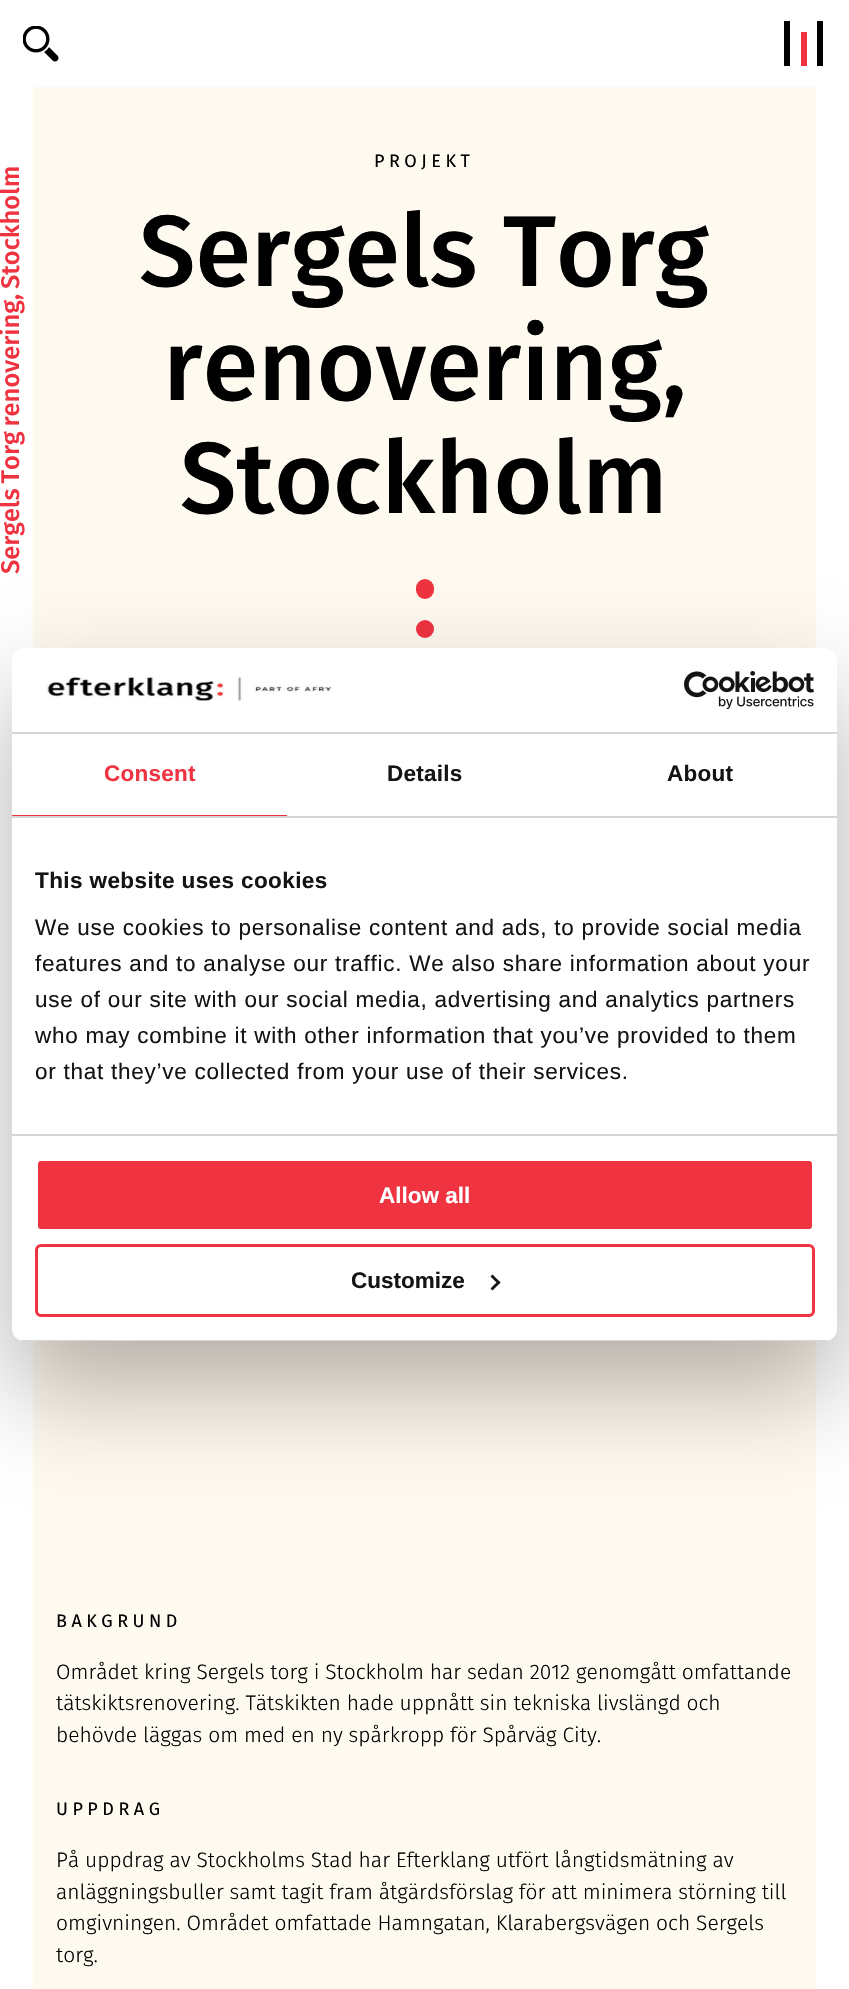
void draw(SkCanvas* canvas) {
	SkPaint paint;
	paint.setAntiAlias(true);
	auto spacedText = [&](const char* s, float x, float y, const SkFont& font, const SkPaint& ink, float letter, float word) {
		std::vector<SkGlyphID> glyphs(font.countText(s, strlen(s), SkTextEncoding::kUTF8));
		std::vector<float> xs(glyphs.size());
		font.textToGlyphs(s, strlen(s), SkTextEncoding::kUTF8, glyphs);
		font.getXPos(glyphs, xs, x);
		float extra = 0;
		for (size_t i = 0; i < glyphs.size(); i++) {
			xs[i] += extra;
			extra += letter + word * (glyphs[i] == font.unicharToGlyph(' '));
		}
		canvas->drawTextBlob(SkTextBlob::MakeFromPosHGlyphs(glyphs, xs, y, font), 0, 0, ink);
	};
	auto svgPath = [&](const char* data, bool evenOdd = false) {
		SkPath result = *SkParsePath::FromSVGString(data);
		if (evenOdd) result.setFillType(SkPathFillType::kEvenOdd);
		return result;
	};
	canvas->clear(0xffffffff);
	canvas->drawImageRect(SkImages::DeferredFromEncodedData(SkData::MakeFromFileName("img1.png")), SkRect::MakeXYWH(23, 26, 36, 36), SkSamplingOptions());
	paint.setColor(0xff000000);
	canvas->drawRect(SkRect::MakeXYWH(784, 21, 6, 45), paint);
	paint.setColor(0xffef3340);
	canvas->drawRect(SkRect::MakeXYWH(801, 32, 6, 34), paint);
	paint.setColor(0xff000000);
	canvas->drawRect(SkRect::MakeXYWH(817, 21, 6, 45), paint);
	paint.setColor(0xfffffaf0);
	canvas->drawRect(SkRect::MakeXYWH(33, 87, 783, 1902), paint);
	SkFont f1(fontMgr->matchFamilyStyle("Fira Sans", SkFontStyle(500, SkFontStyle::kNormal_Width, SkFontStyle::kUpright_Slant)), 25.5);
	f1.setSubpixel(true);
	paint.setColor(0xffef3340);
	canvas->save();
	canvas->rotate(-90, 19, 574);
	spacedText("Sergels Torg renovering, Stockholm", 19, 574, f1, paint, 0, -1.5);
	canvas->restore();
	SkFont f2(fontMgr->matchFamilyStyle("Fira Sans", SkFontStyle::Normal()), 18);
	f2.setSubpixel(true);
	paint.setColor(0xff000000);
	spacedText("PROJEKT", 374, 167, f2, paint, 4.5, 0);
	SkFont f3(fontMgr->matchFamilyStyle("Fira Sans", SkFontStyle(500, SkFontStyle::kNormal_Width, SkFontStyle::kUpright_Slant)), 100.75);
	f3.setSubpixel(true);
	canvas->drawString("Sergels Torg", 139, 286, f3, paint);
	canvas->drawString("renovering,", 163, 400, f3, paint);
	canvas->drawString("Stockholm", 180, 513, f3, paint);
	paint.setColor(0xffef3340);
	canvas->drawRoundRect(SkRect::MakeXYWH(416, 579, 18, 20), 9, 9, paint);
	canvas->drawCircle(425, 629, 9, paint);
	paint.setColor(0xff000000);
	spacedText("BAKGRUND", 56, 1627, f2, paint, 4.5, 0);
	SkFont f4(fontMgr->matchFamilyStyle("Fira Sans", SkFontStyle(300, SkFontStyle::kNormal_Width, SkFontStyle::kUpright_Slant)), 21);
	f4.setSubpixel(true);
	canvas->drawString("Området kring Sergels torg i Stockholm har sedan 2012 genomgått omfattande", 56, 1679, f4, paint);
	canvas->drawString("tätskiktsrenovering. Tätskikten hade uppnått sin tekniska livslängd och", 56, 1710, f4, paint);
	canvas->drawString("behövde läggas om med en ny spårkropp för Spårväg City.", 56, 1742, f4, paint);
	spacedText("UPPDRAG", 56, 1815, f2, paint, 4.5, 0);
	canvas->drawString("På uppdrag av Stockholms Stad har Efterklang utfört långtidsmätning av", 56, 1867, f4, paint);
	canvas->drawString("anläggningsbuller samt tagit fram åtgärdsförslag för att minimera störning till", 56, 1899, f4, paint);
	canvas->drawString("omgivningen. Området omfattade Hamngatan, Klarabergsvägen och Sergels", 56, 1930, f4, paint);
	canvas->drawString("torg.", 56, 1962, f4, paint);
	paint.setColor(0x4d000000);
	paint.setMaskFilter(SkMaskFilter::MakeBlur(kNormal_SkBlurStyle, 51));
	canvas->drawRoundRect(SkRect::MakeXYWH(12, 696, 825, 693), 12, 12, paint);
	paint.setMaskFilter(nullptr);
	paint.setColor(0xffffffff);
	canvas->drawRoundRect(SkRect::MakeXYWH(12, 648, 825, 693), 12, 12, paint);
	paint.setColor(0xffd6d6d6);
	canvas->drawRect(SkRect::MakeXYWH(12, 732, 825, 2), paint);
	canvas->drawImageRect(SkImages::DeferredFromEncodedData(SkData::MakeFromFileName("img2.png")), SkRect::MakeXYWH(46, 677, 286, 24), SkSamplingOptions());
	canvas->drawImageRect(SkImages::DeferredFromEncodedData(SkData::MakeFromFileName("img3.png")), SkRect::MakeXYWH(684, 671, 130, 38), SkSamplingOptions());
	canvas->drawRect(SkRect::MakeXYWH(12, 816, 825, 2), paint);
	paint.setColor(0xffef3340);
	canvas->drawRect(SkRect::MakeXYWH(12, 815, 275, 1), paint);
	SkFont f5(fontMgr->matchFamilyStyle("Liberation Sans", SkFontStyle::Bold()), 22.5);
	f5.setSubpixel(true);
	spacedText("Consent", 104, 781, f5, paint, 0.25, 0);
	paint.setColor(0xff141414);
	spacedText("Details", 387, 781, f5, paint, 0.25, 0);
	spacedText("About", 667, 781, f5, paint, 0.25, 0);
	paint.setColor(0xffd6d6d6);
	canvas->drawRect(SkRect::MakeXYWH(12, 1134, 825, 2), paint);
	paint.setColor(0xff141414);
	spacedText("This website uses cookies", 35, 888, f5, paint, 0.4, 0);
	SkFont f6(fontMgr->matchFamilyStyle("Liberation Sans", SkFontStyle::Normal()), 22.5);
	f6.setSubpixel(true);
	spacedText("We use cookies to personalise content and ads, to provide social media", 35, 935, f6, paint, 0.75, 0);
	spacedText("features and to analyse our traffic. We also share information about your", 35, 971, f6, paint, 0.75, 0);
	spacedText("use of our site with our social media, advertising and analytics partners", 35, 1007, f6, paint, 0.75, 0);
	spacedText("who may combine it with other information that you’ve provided to them", 35, 1043, f6, paint, 0.75, 0);
	spacedText("or that they’ve collected from your use of their services.", 35, 1079, f6, paint, 0.75, 0);
	canvas->save();
	canvas->clipPath(svgPath("M24 648H825C831.5 648 837 653.5 837 660V1329C837 1335.5 831.5 1341 825 1341H24C17.5 1341 12 1335.5 12 1329V660C12 653.5 17.5 648 24 648Z"), true);
	paint.setColor(0xffd6d6d6);
	canvas->drawRect(SkRect::MakeXYWH(12, 1340, 825, 1), paint);
	canvas->restore();
	paint.setColor(0xffef3340);
	canvas->drawRoundRect(SkRect::MakeXYWH(36.5, 1159.5, 777, 71), 4.5, 4.5, paint);
	paint.setStroke(true);
	paint.setStrokeWidth(3);
	paint.setColor(0xffffffff);
	canvas->drawRoundRect(SkRect::MakeXYWH(36.5, 1159.5, 777, 71), 4.5, 4.5, paint);
	paint.setStroke(false);
	canvas->drawString("Allow all", 379, 1203, f5, paint);
	paint.setStroke(true);
	paint.setColor(0xffef3340);
	canvas->drawRoundRect(SkRect::MakeXYWH(36.5, 1245.5, 777, 70), 4.5, 4.5, paint);
	paint.setStroke(false);
	paint.setColor(0xff141414);
	canvas->drawString("Customize", 351, 1288, f5, paint);
	canvas->drawPath(svgPath("M492.5 1274.5L500.5 1282.5L498.5 1284.5L490.5 1276.5Z"), paint);
	canvas->drawPath(svgPath("M498.5 1280.5L500.5 1282.5L492.5 1290.5L490.5 1288.5Z"), paint);
}
